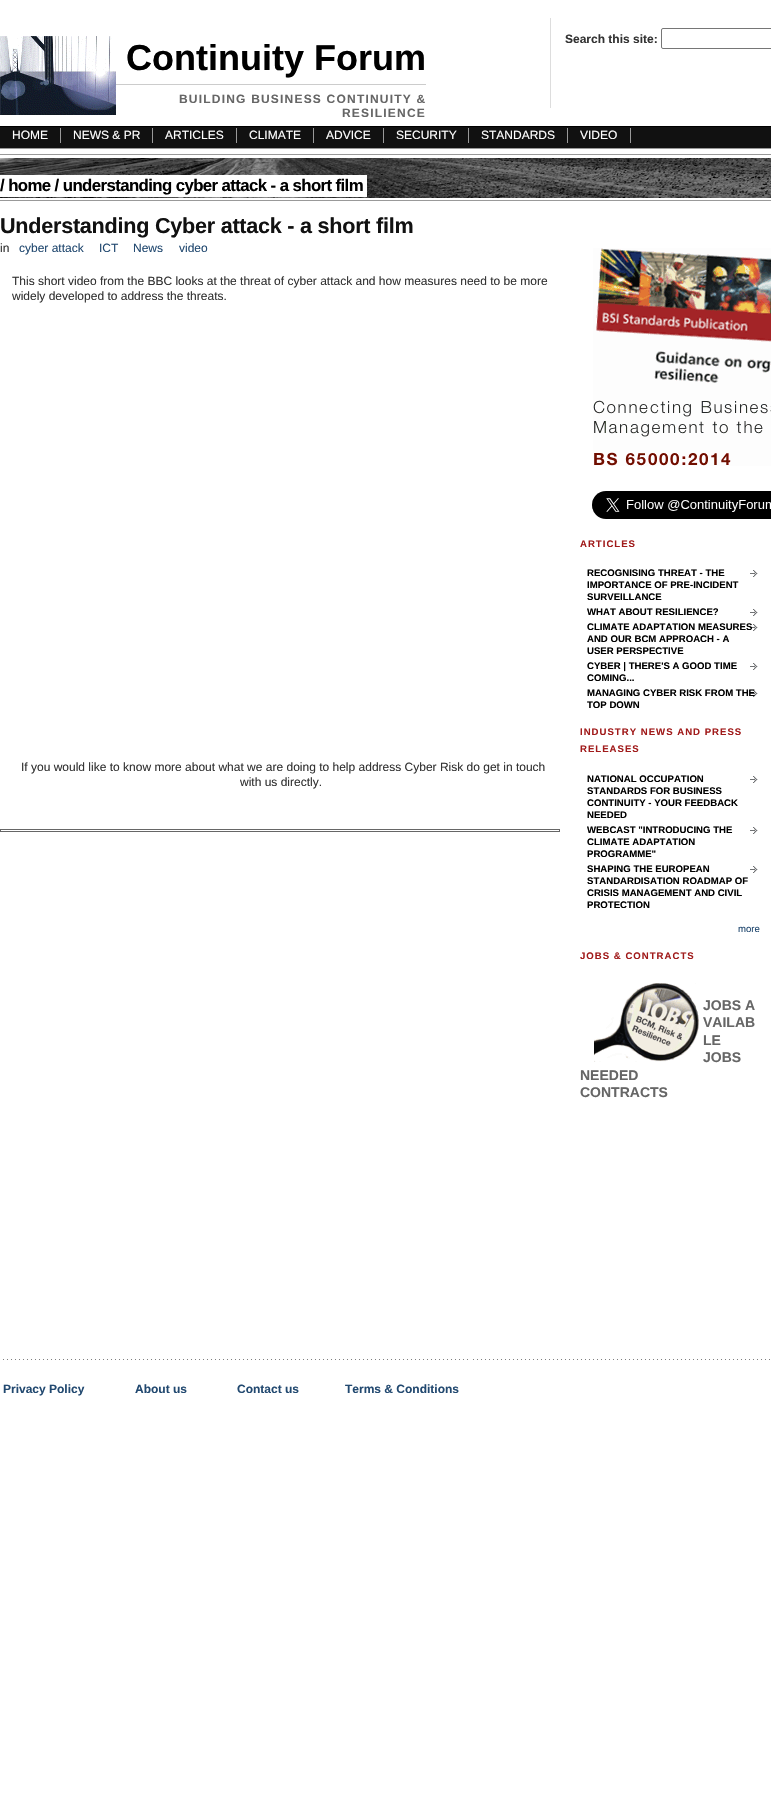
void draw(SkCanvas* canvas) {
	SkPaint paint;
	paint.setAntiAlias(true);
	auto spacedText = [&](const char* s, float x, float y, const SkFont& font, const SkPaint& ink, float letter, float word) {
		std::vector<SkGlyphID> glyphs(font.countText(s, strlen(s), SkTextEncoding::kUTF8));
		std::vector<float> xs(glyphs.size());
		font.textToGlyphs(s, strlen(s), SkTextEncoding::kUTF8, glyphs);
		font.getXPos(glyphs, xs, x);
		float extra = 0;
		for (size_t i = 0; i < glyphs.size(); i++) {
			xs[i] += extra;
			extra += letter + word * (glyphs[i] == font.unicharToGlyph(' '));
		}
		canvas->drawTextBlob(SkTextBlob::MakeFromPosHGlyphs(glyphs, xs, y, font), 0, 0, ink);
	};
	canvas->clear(0xffffffff);
	paint.setColor(0xffdddddd);
	canvas->drawRect(SkRect::MakeXYWH(550, 18, 1, 90), paint);
	SkFont f1(fontMgr->matchFamilyStyle("Liberation Sans", SkFontStyle::Bold()), 12);
	f1.setSubpixel(true);
	paint.setColor(0xff333333);
	canvas->drawString("Search this site:", 565, 43, f1, paint);
	paint.setStroke(true);
	paint.setStrokeWidth(1);
	paint.setColor(0xff767676);
	canvas->drawRoundRect(SkRect::MakeXYWH(661.5, 28.5, 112, 20), 1.5, 1.5, paint);
	canvas->drawImageRect(SkImages::DeferredFromEncodedData(SkData::MakeFromFileName("img1.png")), SkRect::MakeXYWH(0, 36, 116, 79), SkSamplingOptions());
	SkFont f2(fontMgr->matchFamilyStyle("Liberation Sans", SkFontStyle::Bold()), 36);
	f2.setSubpixel(true);
	paint.setStroke(false);
	paint.setColor(0xff000000);
	canvas->drawString("Continuity Forum", 126, 70, f2, paint);
	paint.setColor(0xffcccccc);
	canvas->drawRect(SkRect::MakeXYWH(116, 84, 310, 1), paint);
	paint.setColor(0xff666666);
	spacedText("BUILDING BUSINESS CONTINUITY &", 179, 103, f1, paint, 1.2, 0);
	spacedText("RESILIENCE", 342, 117, f1, paint, 1.2, 0);
	paint.setColor(0xff999999);
	canvas->drawRect(SkRect::MakeXYWH(0, 148, 771, 1), paint);
	paint.setColor(0xff111111);
	canvas->drawRect(SkRect::MakeXYWH(0, 127, 771, 21), paint);
	paint.setColor(0xff000000);
	canvas->drawRect(SkRect::MakeXYWH(0, 126, 771, 1), paint);
	paint.setColor(0xff999999);
	canvas->drawRect(SkRect::MakeXYWH(60, 128, 1, 15), paint);
	SkFont f3(fontMgr->matchFamilyStyle("Liberation Sans", SkFontStyle::Normal()), 12);
	f3.setSubpixel(true);
	paint.setColor(0xffffffff);
	canvas->drawString("HOME", 12, 139, f3, paint);
	paint.setColor(0xff999999);
	canvas->drawRect(SkRect::MakeXYWH(152, 128, 1, 15), paint);
	paint.setColor(0xffffffff);
	canvas->drawString("NEWS & PR", 73, 139, f3, paint);
	paint.setColor(0xff999999);
	canvas->drawRect(SkRect::MakeXYWH(236, 128, 1, 15), paint);
	paint.setColor(0xffffffff);
	canvas->drawString("ARTICLES", 165, 139, f3, paint);
	paint.setColor(0xff999999);
	canvas->drawRect(SkRect::MakeXYWH(313, 128, 1, 15), paint);
	paint.setColor(0xffffffff);
	canvas->drawString("CLIMATE", 249, 139, f3, paint);
	paint.setColor(0xff999999);
	canvas->drawRect(SkRect::MakeXYWH(383, 128, 1, 15), paint);
	paint.setColor(0xffffffff);
	canvas->drawString("ADVICE", 326, 139, f3, paint);
	paint.setColor(0xff999999);
	canvas->drawRect(SkRect::MakeXYWH(468, 128, 1, 15), paint);
	paint.setColor(0xffffffff);
	canvas->drawString("SECURITY", 396, 139, f3, paint);
	paint.setColor(0xff999999);
	canvas->drawRect(SkRect::MakeXYWH(567, 128, 1, 15), paint);
	paint.setColor(0xffffffff);
	canvas->drawString("STANDARDS", 481, 139, f3, paint);
	paint.setColor(0xff999999);
	canvas->drawRect(SkRect::MakeXYWH(630, 128, 1, 15), paint);
	paint.setColor(0xffffffff);
	canvas->drawString("VIDEO", 580, 139, f3, paint);
	canvas->drawImageRect(SkImages::DeferredFromEncodedData(SkData::MakeFromFileName("img2.png")), SkRect::MakeXYWH(0, 158, 771, 40), SkSamplingOptions());
	paint.setColor(0xff999999);
	canvas->drawRect(SkRect::MakeXYWH(0, 154, 771, 1), paint);
	canvas->drawRect(SkRect::MakeXYWH(0, 200, 771, 1), paint);
	paint.setColor(0xffffffff);
	canvas->drawRect(SkRect::MakeXYWH(0, 175, 367, 22), paint);
	SkFont f4(fontMgr->matchFamilyStyle("Liberation Sans", SkFontStyle::Bold()), 16.8);
	f4.setSubpixel(true);
	paint.setColor(0xff000000);
	spacedText("/ home / understanding cyber attack - a short film", 0, 191, f4, paint, -0.6, 0);
	SkFont f5(fontMgr->matchFamilyStyle("Liberation Sans", SkFontStyle::Bold()), 21.6);
	f5.setSubpixel(true);
	paint.setColor(0xff111111);
	spacedText("Understanding Cyber attack - a short film", 0, 233, f5, paint, -0.25, 0);
	paint.setColor(0xff333333);
	canvas->drawString("in", 0, 252, f3, paint);
	paint.setColor(0xff224970);
	canvas->drawString("cyber attack", 19, 252, f3, paint);
	canvas->drawString("ICT", 99, 252, f3, paint);
	canvas->drawString("News", 133, 252, f3, paint);
	canvas->drawString("video", 179, 252, f3, paint);
	paint.setColor(0xff333333);
	canvas->drawString("This short video from the BBC looks at the threat of cyber attack and how measures need to be more", 12, 285, f3, paint);
	canvas->drawString("widely developed to address the threats.", 12, 300, f3, paint);
	canvas->drawString("If you would like to know more about what we are doing to help address Cyber Risk do get in touch", 21, 771, f3, paint);
	canvas->drawString("with us directly.", 240, 786, f3, paint);
	paint.setStroke(true);
	paint.setColor(0xff666666);
	canvas->drawRect(SkRect::MakeXYWH(0.5, 829.5, 559, 2), paint);
	canvas->drawImageRect(SkImages::DeferredFromEncodedData(SkData::MakeFromFileName("img3.png")), SkRect::MakeXYWH(593, 248, 178, 218), SkSamplingOptions());
	canvas->drawImageRect(SkImages::DeferredFromEncodedData(SkData::MakeFromFileName("img4.png")), SkRect::MakeXYWH(592, 491, 179, 28), SkSamplingOptions());
	SkFont f6(fontMgr->matchFamilyStyle("Liberation Sans", SkFontStyle::Bold()), 9.6);
	f6.setSubpixel(true);
	paint.setStroke(false);
	paint.setColor(0xffa11b1b);
	spacedText("ARTICLES", 580, 547, f6, paint, 1, 0);
	canvas->drawImageRect(SkImages::DeferredFromEncodedData(SkData::MakeFromFileName("img5.png")), SkRect::MakeXYWH(750, 570, 8, 7), SkSamplingOptions());
	paint.setColor(0xff000000);
	canvas->drawString("RECOGNISING THREAT - THE", 587, 576, f6, paint);
	canvas->drawString("IMPORTANCE OF PRE-INCIDENT", 587, 588, f6, paint);
	canvas->drawString("SURVEILLANCE", 587, 600, f6, paint);
	canvas->drawImageRect(SkImages::DeferredFromEncodedData(SkData::MakeFromFileName("img5.png")), SkRect::MakeXYWH(750, 609, 8, 7), SkSamplingOptions());
	canvas->drawString("WHAT ABOUT RESILIENCE?", 587, 615, f6, paint);
	canvas->drawImageRect(SkImages::DeferredFromEncodedData(SkData::MakeFromFileName("img5.png")), SkRect::MakeXYWH(750, 624, 8, 7), SkSamplingOptions());
	canvas->drawString("CLIMATE ADAPTATION MEASURES", 587, 630, f6, paint);
	canvas->drawString("AND OUR BCM APPROACH - A", 587, 642, f6, paint);
	canvas->drawString("USER PERSPECTIVE", 587, 654, f6, paint);
	canvas->drawImageRect(SkImages::DeferredFromEncodedData(SkData::MakeFromFileName("img5.png")), SkRect::MakeXYWH(750, 663, 8, 7), SkSamplingOptions());
	canvas->drawString("CYBER | THERE'S A GOOD TIME", 587, 669, f6, paint);
	canvas->drawString("COMING...", 587, 681, f6, paint);
	canvas->drawImageRect(SkImages::DeferredFromEncodedData(SkData::MakeFromFileName("img5.png")), SkRect::MakeXYWH(750, 690, 8, 7), SkSamplingOptions());
	canvas->drawString("MANAGING CYBER RISK FROM THE", 587, 696, f6, paint);
	canvas->drawString("TOP DOWN", 587, 708, f6, paint);
	paint.setColor(0xffa11b1b);
	spacedText("INDUSTRY NEWS AND PRESS", 580, 735, f6, paint, 1, 0);
	spacedText("RELEASES", 580, 752, f6, paint, 1, 0);
	canvas->drawImageRect(SkImages::DeferredFromEncodedData(SkData::MakeFromFileName("img5.png")), SkRect::MakeXYWH(750, 776, 8, 7), SkSamplingOptions());
	paint.setColor(0xff000000);
	canvas->drawString("NATIONAL OCCUPATION", 587, 782, f6, paint);
	canvas->drawString("STANDARDS FOR BUSINESS", 587, 794, f6, paint);
	canvas->drawString("CONTINUITY - YOUR FEEDBACK", 587, 806, f6, paint);
	canvas->drawString("NEEDED", 587, 818, f6, paint);
	canvas->drawImageRect(SkImages::DeferredFromEncodedData(SkData::MakeFromFileName("img5.png")), SkRect::MakeXYWH(750, 827, 8, 7), SkSamplingOptions());
	canvas->drawString("WEBCAST \"INTRODUCING THE", 587, 833, f6, paint);
	canvas->drawString("CLIMATE ADAPTATION", 587, 845, f6, paint);
	canvas->drawString("PROGRAMME\"", 587, 857, f6, paint);
	canvas->drawImageRect(SkImages::DeferredFromEncodedData(SkData::MakeFromFileName("img5.png")), SkRect::MakeXYWH(750, 866, 8, 7), SkSamplingOptions());
	canvas->drawString("SHAPING THE EUROPEAN", 587, 872, f6, paint);
	canvas->drawString("STANDARDISATION ROADMAP OF", 587, 884, f6, paint);
	canvas->drawString("CRISIS MANAGEMENT AND CIVIL", 587, 896, f6, paint);
	canvas->drawString("PROTECTION", 587, 908, f6, paint);
	SkFont f7(fontMgr->matchFamilyStyle("Liberation Sans", SkFontStyle::Normal()), 9.6);
	f7.setSubpixel(true);
	paint.setColor(0xff224970);
	canvas->drawString("more", 738, 932, f7, paint);
	paint.setColor(0xffa11b1b);
	spacedText("JOBS & CONTRACTS", 580, 959, f6, paint, 1, 0);
	canvas->drawImageRect(SkImages::DeferredFromEncodedData(SkData::MakeFromFileName("img6.png")), SkRect::MakeXYWH(594, 983, 105, 79), SkSamplingOptions());
	SkFont f8(fontMgr->matchFamilyStyle("Liberation Sans", SkFontStyle::Bold()), 14);
	f8.setSubpixel(true);
	paint.setColor(0xff666666);
	canvas->drawString("JOBS A", 703, 1010, f8, paint);
	canvas->drawString("VAILAB", 703, 1027, f8, paint);
	canvas->drawString("LE", 703, 1045, f8, paint);
	canvas->drawString("JOBS", 703, 1062, f8, paint);
	canvas->drawString("NEEDED", 580, 1080, f8, paint);
	canvas->drawString("CONTRACTS", 580, 1097, f8, paint);
	canvas->drawImageRect(SkImages::DeferredFromEncodedData(SkData::MakeFromFileName("img7.png")), SkRect::MakeXYWH(3, 1359, 767, 1), SkSamplingOptions());
	paint.setColor(0xff224970);
	canvas->drawString("Privacy Policy", 3, 1393, f1, paint);
	canvas->drawString("About us", 135, 1393, f1, paint);
	canvas->drawString("Contact us", 237, 1393, f1, paint);
	canvas->drawString("Terms & Conditions", 345, 1393, f1, paint);
}
